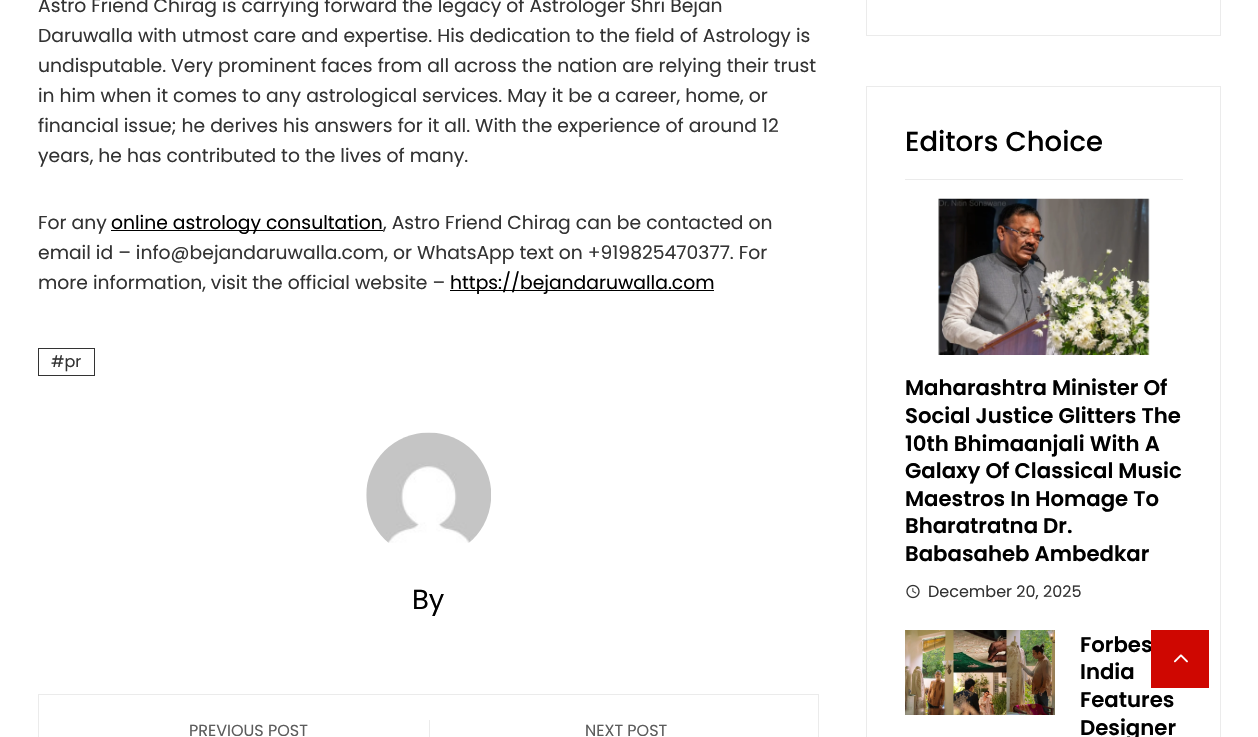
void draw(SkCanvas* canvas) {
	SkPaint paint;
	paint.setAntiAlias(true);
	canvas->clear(0xffffffff);
	SkFont f1(fontMgr->matchFamilyStyle("Poppins", SkFontStyle::Normal()), 18.75);
	f1.setSubpixel(true);
	paint.setColor(0xff333333);
	canvas->drawString("Astro Friend Chirag is carrying forward the legacy of Astrologer Shri Bejan", 38, 12, f1, paint);
	canvas->drawString("Daruwalla with utmost care and expertise. His dedication to the field of Astrology is", 38, 42, f1, paint);
	canvas->drawString("undisputable. Very prominent faces from all across the nation are relying their trust", 38, 72, f1, paint);
	canvas->drawString("in him when it comes to any astrological services. May it be a career, home, or", 38, 102, f1, paint);
	canvas->drawString("financial issue; he derives his answers for it all. With the experience of around 12", 38, 132, f1, paint);
	canvas->drawString("years, he has contributed to the lives of many.", 38, 162, f1, paint);
	canvas->drawString("For any", 38, 229, f1, paint);
	paint.setColor(0xff000000);
	canvas->drawRect(SkRect::MakeXYWH(111, 230, 272, 1), paint);
	canvas->drawString("online astrology consultation", 111, 229, f1, paint);
	paint.setColor(0xff333333);
	canvas->drawString(", Astro Friend Chirag can be contacted on", 383, 229, f1, paint);
	canvas->drawString("email id – info@bejandaruwalla.com, or WhatsApp text on +919825470377. For", 38, 259, f1, paint);
	canvas->drawString("more information, visit the official website –", 38, 289, f1, paint);
	paint.setColor(0xff000000);
	canvas->drawRect(SkRect::MakeXYWH(450, 290, 264, 1), paint);
	canvas->drawString("https://bejandaruwalla.com", 450, 289, f1, paint);
	paint.setStroke(true);
	paint.setStrokeWidth(1);
	paint.setColor(0xff333333);
	canvas->drawRect(SkRect::MakeXYWH(38.5, 348.5, 56, 27), paint);
	SkFont f2(fontMgr->matchFamilyStyle("Poppins", SkFontStyle::Normal()), 16);
	f2.setSubpixel(true);
	paint.setStroke(false);
	canvas->drawString("#pr", 51, 367, f2, paint);
	canvas->drawImageRect(SkImages::DeferredFromEncodedData(SkData::MakeFromFileName("img1.png")), SkRect::MakeXYWH(366, 432, 125, 111), SkSamplingOptions());
	SkFont f3(fontMgr->matchFamilyStyle("Poppins", SkFontStyle::Normal()), 27.5);
	f3.setSubpixel(true);
	paint.setColor(0xff000000);
	canvas->drawString("By", 412, 609, f3, paint);
	paint.setStroke(true);
	paint.setColor(0xffebebeb);
	canvas->drawRect(SkRect::MakeXYWH(38.5, 694.5, 780, 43), paint);
	paint.setStroke(false);
	paint.setColor(0xff5c5c5c);
	canvas->drawString("PREVIOUS POST", 189, 736, f2, paint);
	paint.setColor(0xffebebeb);
	canvas->drawRect(SkRect::MakeXYWH(429, 720, 1, 17), paint);
	paint.setColor(0xff5c5c5c);
	canvas->drawString("NEXT POST", 585, 736, f2, paint);
	paint.setStroke(true);
	paint.setColor(0xffebebeb);
	canvas->drawRect(SkRect::MakeXYWH(866.5, -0.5, 354, 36), paint);
	canvas->drawRect(SkRect::MakeXYWH(866.5, 86.5, 354, 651), paint);
	paint.setStroke(false);
	canvas->drawRect(SkRect::MakeXYWH(905, 179, 278, 1), paint);
	SkFont f4(fontMgr->matchFamilyStyle("Poppins", SkFontStyle(500, SkFontStyle::kNormal_Width, SkFontStyle::kUpright_Slant)), 27.5);
	f4.setSubpixel(true);
	paint.setColor(0xff000000);
	canvas->drawString("Editors Choice", 905, 151, f4, paint);
	canvas->drawImageRect(SkImages::DeferredFromEncodedData(SkData::MakeFromFileName("img2.png")), SkRect::MakeXYWH(938, 198, 212, 157), SkSamplingOptions());
	SkFont f5(fontMgr->matchFamilyStyle("Poppins", SkFontStyle(600, SkFontStyle::kNormal_Width, SkFontStyle::kUpright_Slant)), 21.25);
	f5.setSubpixel(true);
	canvas->drawString("Maharashtra Minister Of", 905, 395, f5, paint);
	canvas->drawString("Social Justice Glitters The", 905, 423, f5, paint);
	canvas->drawString("10th Bhimaanjali With A", 905, 451, f5, paint);
	canvas->drawString("Galaxy Of Classical Music", 905, 478, f5, paint);
	canvas->drawString("Maestros In Homage To", 905, 506, f5, paint);
	canvas->drawString("Bharatratna Dr.", 905, 533, f5, paint);
	canvas->drawString("Babasaheb Ambedkar", 905, 561, f5, paint);
	canvas->drawImageRect(SkImages::DeferredFromEncodedData(SkData::MakeFromFileName("img3.png")), SkRect::MakeXYWH(906, 584, 14, 15), SkSamplingOptions());
	paint.setColor(0xff333333);
	canvas->drawString("December 20, 2025", 928, 597, f2, paint);
	canvas->drawImageRect(SkImages::DeferredFromEncodedData(SkData::MakeFromFileName("img4.png")), SkRect::MakeXYWH(905, 630, 150, 85), SkSamplingOptions());
	paint.setColor(0xff000000);
	canvas->drawString("Forbes", 1080, 652, f5, paint);
	canvas->drawString("India", 1080, 679, f5, paint);
	canvas->drawString("Features", 1080, 707, f5, paint);
	canvas->drawString("Designer", 1080, 735, f5, paint);
	paint.setColor(0xffcf0701);
	canvas->drawRect(SkRect::MakeXYWH(1151, 630, 58, 58), paint);
	canvas->drawImageRect(SkImages::DeferredFromEncodedData(SkData::MakeFromFileName("img5.png")), SkRect::MakeXYWH(1174, 654, 14, 9), SkSamplingOptions());
}
